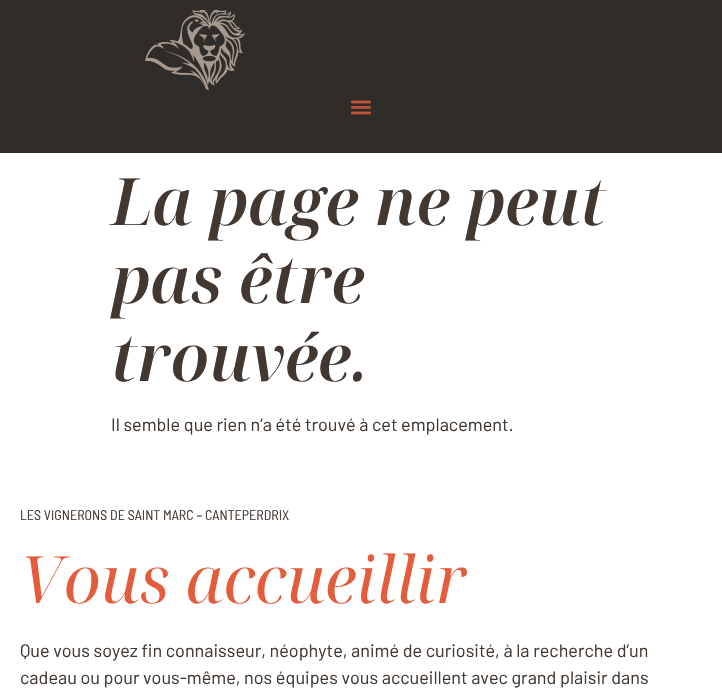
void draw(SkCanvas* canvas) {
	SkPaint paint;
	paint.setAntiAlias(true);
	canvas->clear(0xffffffff);
	paint.setColor(0xff2f2c29);
	canvas->drawRect(SkRect::MakeXYWH(0, 0, 722, 153), paint);
	canvas->drawImageRect(SkImages::DeferredFromEncodedData(SkData::MakeFromFileName("img1.png")), SkRect::MakeXYWH(145, 10, 100, 80), SkSamplingOptions());
	canvas->drawImageRect(SkImages::DeferredFromEncodedData(SkData::MakeFromFileName("img2.png")), SkRect::MakeXYWH(350, 100, 21, 15), SkSamplingOptions());
	SkFont f1(fontMgr->matchFamilyStyle("Noto Serif Display", SkFontStyle(600, SkFontStyle::kNormal_Width, SkFontStyle::kItalic_Slant)), 65);
	f1.setSubpixel(true);
	paint.setColor(0xff423831);
	canvas->drawString("La page ne peut", 111, 225, f1, paint);
	canvas->drawString("pas être", 111, 303, f1, paint);
	canvas->drawString("trouvée.", 111, 381, f1, paint);
	SkFont f2(fontMgr->matchFamilyStyle("Barlow", SkFontStyle::Normal()), 18);
	f2.setSubpixel(true);
	canvas->drawString("Il semble que rien n’a été trouvé à cet emplacement.", 111, 431, f2, paint);
	SkFont f3(fontMgr->matchFamilyStyle("Barlow Semi Condensed", SkFontStyle::Normal()), 14);
	f3.setSubpixel(true);
	canvas->drawString("LES VIGNERONS DE SAINT MARC – CANTEPERDRIX", 20, 520, f3, paint);
	SkFont f4(fontMgr->matchFamilyStyle("Noto Serif Display", SkFontStyle::Italic()), 65);
	f4.setSubpixel(true);
	paint.setColor(0xffe35d3c);
	canvas->drawString("Vous accueillir", 20, 603, f4, paint);
	paint.setColor(0xff423831);
	canvas->drawString("Que vous soyez fin connaisseur, néophyte, animé de curiosité, à la recherche d’un", 20, 657, f2, paint);
	canvas->drawString("cadeau ou pour vous-même, nos équipes vous accueillent avec grand plaisir dans", 20, 684, f2, paint);
}
